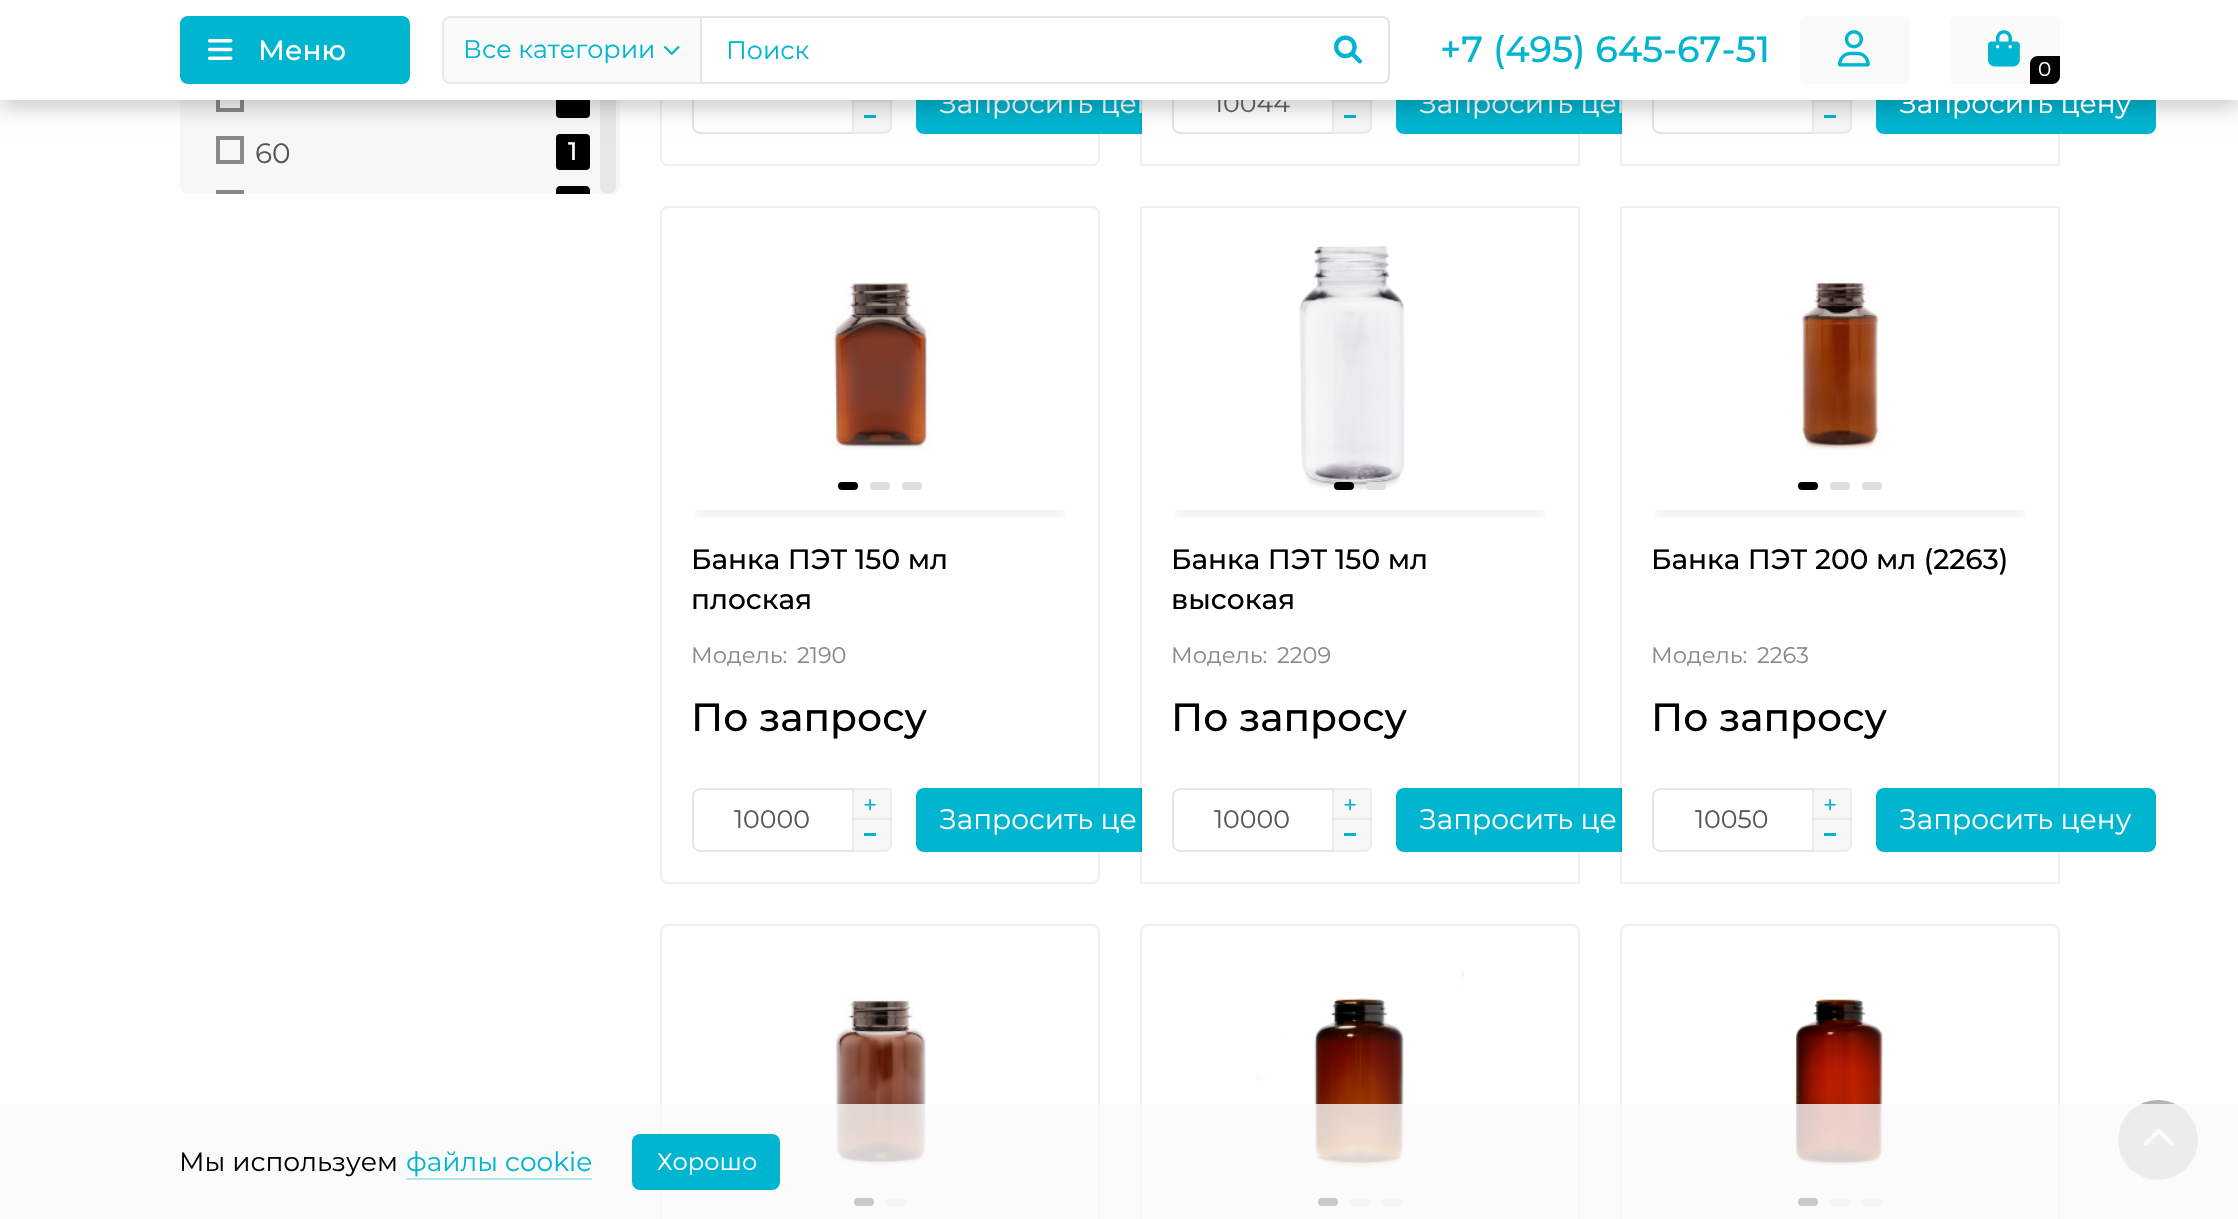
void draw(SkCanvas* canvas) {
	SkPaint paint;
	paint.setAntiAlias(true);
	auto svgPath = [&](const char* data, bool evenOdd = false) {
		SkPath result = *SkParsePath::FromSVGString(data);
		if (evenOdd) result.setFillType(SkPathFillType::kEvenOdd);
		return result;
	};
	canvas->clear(0xffffffff);
	paint.setColor(0xfff7f7f7);
	canvas->drawPath(svgPath("M180-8H620V186C620 190.5 616.5 194 612 194H188C183.5 194 180 190.5 180 186Z"), paint);
	paint.setStroke(true);
	paint.setStrokeWidth(4);
	paint.setColor(0xff888888);
	canvas->drawRect(SkRect::MakeXYWH(218, 86, 24, 24), paint);
	paint.setStroke(false);
	paint.setColor(0xff010101);
	canvas->drawRoundRect(SkRect::MakeXYWH(556, 82, 34, 36), 4, 4, paint);
	paint.setStroke(true);
	paint.setColor(0xff888888);
	canvas->drawRect(SkRect::MakeXYWH(218, 138, 24, 24), paint);
	paint.setStroke(false);
	paint.setColor(0xff010101);
	canvas->drawRoundRect(SkRect::MakeXYWH(556, 134, 34, 36), 4, 4, paint);
	paint.setColor(0xffe7e7e7);
	canvas->drawRoundRect(SkRect::MakeXYWH(600, -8, 16, 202), 8, 8, paint);
	paint.setStroke(true);
	paint.setStrokeWidth(2);
	paint.setColor(0xfff0f0f0);
	canvas->drawRoundRect(SkRect::MakeXYWH(661, -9, 438, 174), 7, 7, paint);
	paint.setStroke(false);
	paint.setColor(0xffe5e5e5);
	canvas->drawPath(svgPath("M700 70H852V134H700C696 134 692 130 692 126V78C692 74 696 70 700 70ZM700 72H852V132H700C697 132 694 129 694 126V78C694 75 697 72 700 72Z", true), paint);
	paint.setColor(0xfff7f7f7);
	canvas->drawRect(SkRect::MakeXYWH(852, 100, 40, 2), paint);
	paint.setStroke(true);
	paint.setColor(0x0d000000);
	canvas->drawRect(SkRect::MakeXYWH(853, 71, 38, 30), paint);
	paint.setStroke(false);
	paint.setColor(0xfff7f7f7);
	canvas->drawPath(svgPath("M852 102H892V126C892 130.5 888.5 134 884 134H852Z"), paint);
	paint.setColor(0xffebebeb);
	canvas->drawPath(svgPath("M852 102H892V126C892 130 888 134 884 134H852ZM854 102H890V126C890 129 887 132 884 132H854Z", true), paint);
	paint.setColor(0xff00b5d0);
	canvas->drawRect(SkRect::MakeXYWH(864, 115, 12, 3), paint);
	canvas->drawRoundRect(SkRect::MakeXYWH(916, 70, 280, 64), 8, 8, paint);
	paint.setColor(0xffffffff);
	canvas->drawRoundRect(SkRect::MakeXYWH(1142, -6, 436, 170), 6, 6, paint);
	SkFont f1(fontMgr->matchFamilyStyle("Montserrat", SkFontStyle::Normal()), 28);
	f1.setSubpixel(true);
	canvas->drawString("Запросить цен", 939, 113, f1, paint);
	paint.setStroke(true);
	paint.setColor(0x0f000000);
	canvas->drawRect(SkRect::MakeXYWH(1141, -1, 438, 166), paint);
	paint.setStroke(false);
	paint.setColor(0xffe5e5e5);
	canvas->drawPath(svgPath("M1180 70H1332V134H1180C1176 134 1172 130 1172 126V78C1172 74 1176 70 1180 70ZM1180 72H1332V132H1180C1177 132 1174 129 1174 126V78C1174 75 1177 72 1180 72Z", true), paint);
	paint.setColor(0xfff7f7f7);
	canvas->drawRect(SkRect::MakeXYWH(1332, 100, 40, 2), paint);
	paint.setStroke(true);
	paint.setColor(0x0d000000);
	canvas->drawRect(SkRect::MakeXYWH(1333, 71, 38, 30), paint);
	paint.setStroke(false);
	paint.setColor(0xfff7f7f7);
	canvas->drawPath(svgPath("M1332 102H1372V126C1372 130.5 1368.5 134 1364 134H1332Z"), paint);
	paint.setColor(0xffebebeb);
	canvas->drawPath(svgPath("M1332 102H1372V126C1372 130 1368 134 1364 134H1332ZM1334 102H1370V126C1370 129 1367 132 1364 132H1334Z", true), paint);
	paint.setColor(0xff00b5d0);
	canvas->drawRect(SkRect::MakeXYWH(1344, 115, 12, 3), paint);
	canvas->drawRoundRect(SkRect::MakeXYWH(1396, 70, 280, 64), 8, 8, paint);
	paint.setColor(0xffffffff);
	canvas->drawRoundRect(SkRect::MakeXYWH(1622, -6, 436, 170), 6, 6, paint);
	canvas->drawString("Запросить цен", 1419, 113, f1, paint);
	paint.setStroke(true);
	paint.setColor(0x0f000000);
	canvas->drawRect(SkRect::MakeXYWH(1621, -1, 438, 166), paint);
	paint.setStroke(false);
	paint.setColor(0xffe5e5e5);
	canvas->drawPath(svgPath("M1660 70H1812V134H1660C1656 134 1652 130 1652 126V78C1652 74 1656 70 1660 70ZM1660 72H1812V132H1660C1657 132 1654 129 1654 126V78C1654 75 1657 72 1660 72Z", true), paint);
	paint.setColor(0xfff7f7f7);
	canvas->drawRect(SkRect::MakeXYWH(1812, 100, 40, 2), paint);
	paint.setStroke(true);
	paint.setColor(0x0d000000);
	canvas->drawRect(SkRect::MakeXYWH(1813, 71, 38, 30), paint);
	paint.setStroke(false);
	paint.setColor(0xfff7f7f7);
	canvas->drawPath(svgPath("M1812 102H1852V126C1852 130.5 1848.5 134 1844 134H1812Z"), paint);
	paint.setColor(0xffebebeb);
	canvas->drawPath(svgPath("M1812 102H1852V126C1852 130 1848 134 1844 134H1812ZM1814 102H1850V126C1850 129 1847 132 1844 132H1814Z", true), paint);
	paint.setColor(0xff00b5d0);
	canvas->drawRect(SkRect::MakeXYWH(1824, 115, 12, 3), paint);
	canvas->drawRoundRect(SkRect::MakeXYWH(1876, 70, 280, 64), 8, 8, paint);
	paint.setColor(0x33000000);
	paint.setMaskFilter(SkMaskFilter::MakeBlur(kNormal_SkBlurStyle, 10));
	canvas->drawRect(SkRect::MakeXYWH(0, 8, 2238, 100), paint);
	paint.setMaskFilter(nullptr);
	SkFont f2(fontMgr->matchFamilyStyle("Montserrat", SkFontStyle::Normal()), 25.25);
	f2.setSubpixel(true);
	paint.setColor(0xff555555);
	canvas->drawString("10044", 1214, 112, f2, paint);
	paint.setColor(0xffffffff);
	canvas->drawRect(SkRect::MakeXYWH(0, 0, 2238, 100), paint);
	paint.setColor(0xff00b5d0);
	canvas->drawRoundRect(SkRect::MakeXYWH(180, 16, 230, 68), 8, 8, paint);
	canvas->drawImageRect(SkImages::DeferredFromEncodedData(SkData::MakeFromFileName("img1.png")), SkRect::MakeXYWH(208, 39, 25, 21), SkSamplingOptions());
	SkFont f3(fontMgr->matchFamilyStyle("Montserrat", SkFontStyle(500, SkFontStyle::kNormal_Width, SkFontStyle::kUpright_Slant)), 28);
	f3.setSubpixel(true);
	paint.setColor(0xffffffff);
	canvas->drawString("Меню", 258, 60, f3, paint);
	paint.setColor(0xfffafafa);
	canvas->drawPath(svgPath("M450 16H700V84H450C445.5 84 442 80.5 442 76V24C442 19.5 445.5 16 450 16Z"), paint);
	paint.setColor(0xffe9e9e9);
	canvas->drawPath(svgPath("M450 16H700V84H450C446 84 442 80 442 76V24C442 20 446 16 450 16ZM450 18H700V82H450C447 82 444 79 444 76V24C444 21 447 18 450 18Z", true), paint);
	paint.setColor(0xff00b5d0);
	canvas->drawString("Все категории", 463, 58, f2, paint);
	canvas->drawImageRect(SkImages::DeferredFromEncodedData(SkData::MakeFromFileName("img2.png")), SkRect::MakeXYWH(664, 46, 16, 9), SkSamplingOptions());
	paint.setStroke(true);
	paint.setColor(0xffe5e5e5);
	canvas->drawPath(svgPath("M701 17H1382C1386 17 1389 20 1389 24V76C1389 80 1386 83 1382 83H701Z"), paint);
	paint.setStroke(false);
	paint.setColor(0xff00b5d0);
	canvas->drawString("Поиск", 726, 59, f2, paint);
	canvas->drawImageRect(SkImages::DeferredFromEncodedData(SkData::MakeFromFileName("img3.png")), SkRect::MakeXYWH(1334, 35, 28, 29), SkSamplingOptions());
	SkFont f4(fontMgr->matchFamilyStyle("Montserrat", SkFontStyle(500, SkFontStyle::kNormal_Width, SkFontStyle::kUpright_Slant)), 36.5);
	f4.setSubpixel(true);
	canvas->drawString("+7 (495) 645-67-51", 1440, 62, f4, paint);
	paint.setColor(0xfffafafa);
	canvas->drawRoundRect(SkRect::MakeXYWH(1800, 16, 110, 68), 6, 6, paint);
	canvas->drawImageRect(SkImages::DeferredFromEncodedData(SkData::MakeFromFileName("img4.png")), SkRect::MakeXYWH(1838, 30, 32, 37), SkSamplingOptions());
	canvas->drawRoundRect(SkRect::MakeXYWH(1950, 16, 110, 68), 6, 6, paint);
	canvas->drawImageRect(SkImages::DeferredFromEncodedData(SkData::MakeFromFileName("img5.png")), SkRect::MakeXYWH(1988, 30, 32, 37), SkSamplingOptions());
	paint.setColor(0xff010101);
	canvas->drawPath(svgPath("M2038 56H2060V76C2060 80.5 2056.5 84 2052 84H2030V64C2030 59.5 2033.5 56 2038 56Z"), paint);
	SkFont f5(fontMgr->matchFamilyStyle("Montserrat", SkFontStyle::Normal()), 20);
	f5.setSubpixel(true);
	paint.setColor(0xffffffff);
	canvas->drawString("0", 2038, 76, f5, paint);
	paint.setColor(0xff555555);
	canvas->drawString("60", 255, 163, f1, paint);
	SkFont f6(fontMgr->matchFamilyStyle("Montserrat", SkFontStyle(500, SkFontStyle::kNormal_Width, SkFontStyle::kUpright_Slant)), 25.25);
	f6.setSubpixel(true);
	paint.setColor(0xffffffff);
	canvas->drawString("1", 568, 160, f6, paint);
	paint.setColor(0xfff7f7f7);
	canvas->drawPath(svgPath("M220 192H238C240 192 242 194 242 196V194H216V196C216 194 218 192 220 192Z"), paint);
	paint.setColor(0xff888888);
	canvas->drawRect(SkRect::MakeXYWH(216, 190, 28, 4), paint);
	paint.setColor(0xff010101);
	canvas->drawPath(svgPath("M560 186H586C588 186 590 188 590 190V194H556V190C556 188 558 186 560 186Z"), paint);
	paint.setColor(0xffffffff);
	canvas->drawString("Запросить цену", 1899, 113, f1, paint);
	paint.setStroke(true);
	paint.setColor(0xfff0f0f0);
	canvas->drawRoundRect(SkRect::MakeXYWH(661, 207, 438, 676), 7, 7, paint);
	canvas->save();
	canvas->clipRect(SkRect::MakeXYWH(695, 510, 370, 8));
	paint.setStroke(false);
	paint.setColor(0x0f000000);
	paint.setMaskFilter(SkMaskFilter::MakeBlur(kNormal_SkBlurStyle, 5));
	canvas->drawRect(SkRect::MakeXYWH(696, 252, 368, 264), paint);
	paint.setMaskFilter(nullptr);
	canvas->restore();
	canvas->drawImageRect(SkImages::DeferredFromEncodedData(SkData::MakeFromFileName("img6.png")), SkRect::MakeXYWH(832, 281, 100, 169), SkSamplingOptions());
	paint.setColor(0xff010101);
	canvas->drawRoundRect(SkRect::MakeXYWH(838, 482, 20, 8), 4, 4, paint);
	paint.setColor(0xffdddddd);
	canvas->drawRoundRect(SkRect::MakeXYWH(870, 482, 20, 8), 4, 4, paint);
	canvas->drawRoundRect(SkRect::MakeXYWH(902, 482, 20, 8), 4, 4, paint);
	paint.setColor(0xff010101);
	canvas->drawString("Банка ПЭТ 150 мл", 691, 569, f3, paint);
	canvas->drawString("плоская", 691, 609, f3, paint);
	SkFont f7(fontMgr->matchFamilyStyle("Montserrat", SkFontStyle::Normal()), 22.5);
	f7.setSubpixel(true);
	paint.setColor(0xff888888);
	canvas->drawString("Модель:", 691, 663, f7, paint);
	canvas->drawString("2190", 797, 663, f7, paint);
	SkFont f8(fontMgr->matchFamilyStyle("Montserrat", SkFontStyle(500, SkFontStyle::kNormal_Width, SkFontStyle::kUpright_Slant)), 39.25);
	f8.setSubpixel(true);
	paint.setColor(0xff010101);
	canvas->drawString("По запросу", 691, 731, f8, paint);
	paint.setColor(0xffe5e5e5);
	canvas->drawPath(svgPath("M700 788H852V852H700C696 852 692 848 692 844V796C692 792 696 788 700 788ZM700 790H852V850H700C697 850 694 847 694 844V796C694 793 697 790 700 790Z", true), paint);
	paint.setColor(0xff555555);
	canvas->drawString("10000", 734, 828, f2, paint);
	paint.setColor(0xfff7f7f7);
	canvas->drawPath(svgPath("M852 788H884C888.5 788 892 791.5 892 796V820H852Z"), paint);
	paint.setStroke(true);
	paint.setColor(0x0d000000);
	canvas->drawRect(SkRect::MakeXYWH(853, 789, 38, 30), paint);
	canvas->drawImageRect(SkImages::DeferredFromEncodedData(SkData::MakeFromFileName("img7.png")), SkRect::MakeXYWH(864, 799, 12, 12), SkSamplingOptions());
	paint.setStroke(false);
	paint.setColor(0xfff7f7f7);
	canvas->drawPath(svgPath("M852 820H892V844C892 848.5 888.5 852 884 852H852Z"), paint);
	paint.setColor(0xffebebeb);
	canvas->drawPath(svgPath("M852 820H892V844C892 848 888 852 884 852H852ZM854 820H890V844C890 847 887 850 884 850H854Z", true), paint);
	paint.setColor(0xff00b5d0);
	canvas->drawRect(SkRect::MakeXYWH(864, 833, 12, 3), paint);
	canvas->drawRoundRect(SkRect::MakeXYWH(916, 788, 280, 64), 8, 8, paint);
	paint.setColor(0xffffffff);
	canvas->drawString("Запросить це", 939, 829, f1, paint);
	canvas->drawRoundRect(SkRect::MakeXYWH(1142, 208, 436, 674), 6, 6, paint);
	paint.setStroke(true);
	paint.setColor(0x0f000000);
	canvas->drawRect(SkRect::MakeXYWH(1141, 207, 438, 676), paint);
	canvas->save();
	canvas->clipRect(SkRect::MakeXYWH(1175, 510, 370, 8));
	paint.setStroke(false);
	paint.setMaskFilter(SkMaskFilter::MakeBlur(kNormal_SkBlurStyle, 5));
	canvas->drawRect(SkRect::MakeXYWH(1176, 252, 368, 264), paint);
	paint.setMaskFilter(nullptr);
	canvas->restore();
	canvas->drawImageRect(SkImages::DeferredFromEncodedData(SkData::MakeFromFileName("img8.png")), SkRect::MakeXYWH(1299, 245, 106, 245), SkSamplingOptions());
	paint.setColor(0xff010101);
	canvas->drawRoundRect(SkRect::MakeXYWH(1334, 482, 20, 8), 4, 4, paint);
	paint.setColor(0xffdddddd);
	canvas->drawRoundRect(SkRect::MakeXYWH(1366, 482, 20, 8), 4, 4, paint);
	paint.setColor(0xff010101);
	canvas->drawString("Банка ПЭТ 150 мл", 1171, 569, f3, paint);
	canvas->drawString("высокая", 1171, 609, f3, paint);
	paint.setColor(0xff888888);
	canvas->drawString("Модель:", 1171, 663, f7, paint);
	canvas->drawString("2209", 1277, 663, f7, paint);
	paint.setColor(0xff010101);
	canvas->drawString("По запросу", 1171, 731, f8, paint);
	paint.setColor(0xffe5e5e5);
	canvas->drawPath(svgPath("M1180 788H1332V852H1180C1176 852 1172 848 1172 844V796C1172 792 1176 788 1180 788ZM1180 790H1332V850H1180C1177 850 1174 847 1174 844V796C1174 793 1177 790 1180 790Z", true), paint);
	paint.setColor(0xff555555);
	canvas->drawString("10000", 1214, 828, f2, paint);
	paint.setColor(0xfff7f7f7);
	canvas->drawPath(svgPath("M1332 788H1364C1368.5 788 1372 791.5 1372 796V820H1332Z"), paint);
	paint.setStroke(true);
	paint.setColor(0x0d000000);
	canvas->drawRect(SkRect::MakeXYWH(1333, 789, 38, 30), paint);
	canvas->drawImageRect(SkImages::DeferredFromEncodedData(SkData::MakeFromFileName("img7.png")), SkRect::MakeXYWH(1344, 799, 12, 12), SkSamplingOptions());
	paint.setStroke(false);
	paint.setColor(0xfff7f7f7);
	canvas->drawPath(svgPath("M1332 820H1372V844C1372 848.5 1368.5 852 1364 852H1332Z"), paint);
	paint.setColor(0xffebebeb);
	canvas->drawPath(svgPath("M1332 820H1372V844C1372 848 1368 852 1364 852H1332ZM1334 820H1370V844C1370 847 1367 850 1364 850H1334Z", true), paint);
	paint.setColor(0xff00b5d0);
	canvas->drawRect(SkRect::MakeXYWH(1344, 833, 12, 3), paint);
	canvas->drawRoundRect(SkRect::MakeXYWH(1396, 788, 280, 64), 8, 8, paint);
	paint.setColor(0xffffffff);
	canvas->drawString("Запросить це", 1419, 829, f1, paint);
	canvas->drawRoundRect(SkRect::MakeXYWH(1622, 208, 436, 674), 6, 6, paint);
	paint.setStroke(true);
	paint.setColor(0x0f000000);
	canvas->drawRect(SkRect::MakeXYWH(1621, 207, 438, 676), paint);
	canvas->save();
	canvas->clipRect(SkRect::MakeXYWH(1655, 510, 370, 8));
	paint.setStroke(false);
	paint.setMaskFilter(SkMaskFilter::MakeBlur(kNormal_SkBlurStyle, 5));
	canvas->drawRect(SkRect::MakeXYWH(1656, 252, 368, 264), paint);
	paint.setMaskFilter(nullptr);
	canvas->restore();
	canvas->drawImageRect(SkImages::DeferredFromEncodedData(SkData::MakeFromFileName("img9.png")), SkRect::MakeXYWH(1802, 280, 81, 170), SkSamplingOptions());
	paint.setColor(0xff010101);
	canvas->drawRoundRect(SkRect::MakeXYWH(1798, 482, 20, 8), 4, 4, paint);
	paint.setColor(0xffdddddd);
	canvas->drawRoundRect(SkRect::MakeXYWH(1830, 482, 20, 8), 4, 4, paint);
	canvas->drawRoundRect(SkRect::MakeXYWH(1862, 482, 20, 8), 4, 4, paint);
	paint.setColor(0xff010101);
	canvas->drawString("Банка ПЭТ 200 мл (2263)", 1651, 569, f3, paint);
	paint.setColor(0xff888888);
	canvas->drawString("Модель:", 1651, 663, f7, paint);
	canvas->drawString("2263", 1757, 663, f7, paint);
	paint.setColor(0xff010101);
	canvas->drawString("По запросу", 1651, 731, f8, paint);
	paint.setColor(0xffe5e5e5);
	canvas->drawPath(svgPath("M1660 788H1812V852H1660C1656 852 1652 848 1652 844V796C1652 792 1656 788 1660 788ZM1660 790H1812V850H1660C1657 850 1654 847 1654 844V796C1654 793 1657 790 1660 790Z", true), paint);
	paint.setColor(0xff555555);
	canvas->drawString("10050", 1695, 828, f2, paint);
	paint.setColor(0xfff7f7f7);
	canvas->drawPath(svgPath("M1812 788H1844C1848.5 788 1852 791.5 1852 796V820H1812Z"), paint);
	paint.setStroke(true);
	paint.setColor(0x0d000000);
	canvas->drawRect(SkRect::MakeXYWH(1813, 789, 38, 30), paint);
	canvas->drawImageRect(SkImages::DeferredFromEncodedData(SkData::MakeFromFileName("img7.png")), SkRect::MakeXYWH(1824, 799, 12, 12), SkSamplingOptions());
	paint.setStroke(false);
	paint.setColor(0xfff7f7f7);
	canvas->drawPath(svgPath("M1812 820H1852V844C1852 848.5 1848.5 852 1844 852H1812Z"), paint);
	paint.setColor(0xffebebeb);
	canvas->drawPath(svgPath("M1812 820H1852V844C1852 848 1848 852 1844 852H1812ZM1814 820H1850V844C1850 847 1847 850 1844 850H1814Z", true), paint);
	paint.setColor(0xff00b5d0);
	canvas->drawRect(SkRect::MakeXYWH(1824, 833, 12, 3), paint);
	canvas->drawRoundRect(SkRect::MakeXYWH(1876, 788, 280, 64), 8, 8, paint);
	paint.setColor(0xffffffff);
	canvas->drawString("Запросить цену", 1899, 829, f1, paint);
	paint.setStroke(true);
	paint.setColor(0xfff0f0f0);
	canvas->drawRoundRect(SkRect::MakeXYWH(661, 925, 438, 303), 7, 7, paint);
	canvas->drawImageRect(SkImages::DeferredFromEncodedData(SkData::MakeFromFileName("img10.png")), SkRect::MakeXYWH(834, 996, 95, 170), SkSamplingOptions());
	paint.setStroke(false);
	paint.setColor(0xff010101);
	canvas->drawRoundRect(SkRect::MakeXYWH(854, 1198, 20, 8), 4, 4, paint);
	paint.setColor(0xffdddddd);
	canvas->drawRoundRect(SkRect::MakeXYWH(886, 1198, 20, 8), 4, 4, paint);
	paint.setStroke(true);
	paint.setColor(0xfff0f0f0);
	canvas->drawRoundRect(SkRect::MakeXYWH(1141, 925, 438, 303), 7, 7, paint);
	canvas->drawImageRect(SkImages::DeferredFromEncodedData(SkData::MakeFromFileName("img11.png")), SkRect::MakeXYWH(1256, 972, 208, 198), SkSamplingOptions());
	paint.setStroke(false);
	paint.setColor(0xff010101);
	canvas->drawRoundRect(SkRect::MakeXYWH(1318, 1198, 20, 8), 4, 4, paint);
	paint.setColor(0xffdddddd);
	canvas->drawRoundRect(SkRect::MakeXYWH(1350, 1198, 20, 8), 4, 4, paint);
	canvas->drawRoundRect(SkRect::MakeXYWH(1382, 1198, 20, 8), 4, 4, paint);
	paint.setStroke(true);
	paint.setColor(0xfff0f0f0);
	canvas->drawRoundRect(SkRect::MakeXYWH(1621, 925, 438, 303), 7, 7, paint);
	canvas->drawImageRect(SkImages::DeferredFromEncodedData(SkData::MakeFromFileName("img12.png")), SkRect::MakeXYWH(1795, 999, 99, 171), SkSamplingOptions());
	paint.setStroke(false);
	paint.setColor(0xff010101);
	canvas->drawRoundRect(SkRect::MakeXYWH(1798, 1198, 20, 8), 4, 4, paint);
	paint.setColor(0xffdddddd);
	canvas->drawRoundRect(SkRect::MakeXYWH(1830, 1198, 20, 8), 4, 4, paint);
	canvas->drawRoundRect(SkRect::MakeXYWH(1862, 1198, 20, 8), 4, 4, paint);
	paint.setColor(0xffb3b3b3);
	canvas->drawCircle(2158, 1140, 40, paint);
	canvas->drawImageRect(SkImages::DeferredFromEncodedData(SkData::MakeFromFileName("img13.png")), SkRect::MakeXYWH(2144, 1128, 30, 18), SkSamplingOptions());
	paint.setColor(0xccfafafa);
	canvas->drawRect(SkRect::MakeXYWH(0, 1104, 2238, 115), paint);
	SkFont f9(fontMgr->matchFamilyStyle("Montserrat", SkFontStyle::Normal()), 26.5);
	f9.setSubpixel(true);
	paint.setColor(0xff010101);
	canvas->drawString("Мы используем", 179, 1171, f9, paint);
	paint.setColor(0xff00b5d0);
	canvas->drawString("файлы cookie", 406, 1171, f9, paint);
	paint.setColor(0xffb0e6ee);
	canvas->drawRect(SkRect::MakeXYWH(406, 1178, 186, 2), paint);
	paint.setColor(0xff00b5d0);
	canvas->drawRoundRect(SkRect::MakeXYWH(632, 1134, 148, 56), 8, 8, paint);
	SkFont f10(fontMgr->matchFamilyStyle("Montserrat", SkFontStyle::Normal()), 24);
	f10.setSubpixel(true);
	paint.setColor(0xffffffff);
	canvas->drawString("Хорошо", 657, 1170, f10, paint);
}
